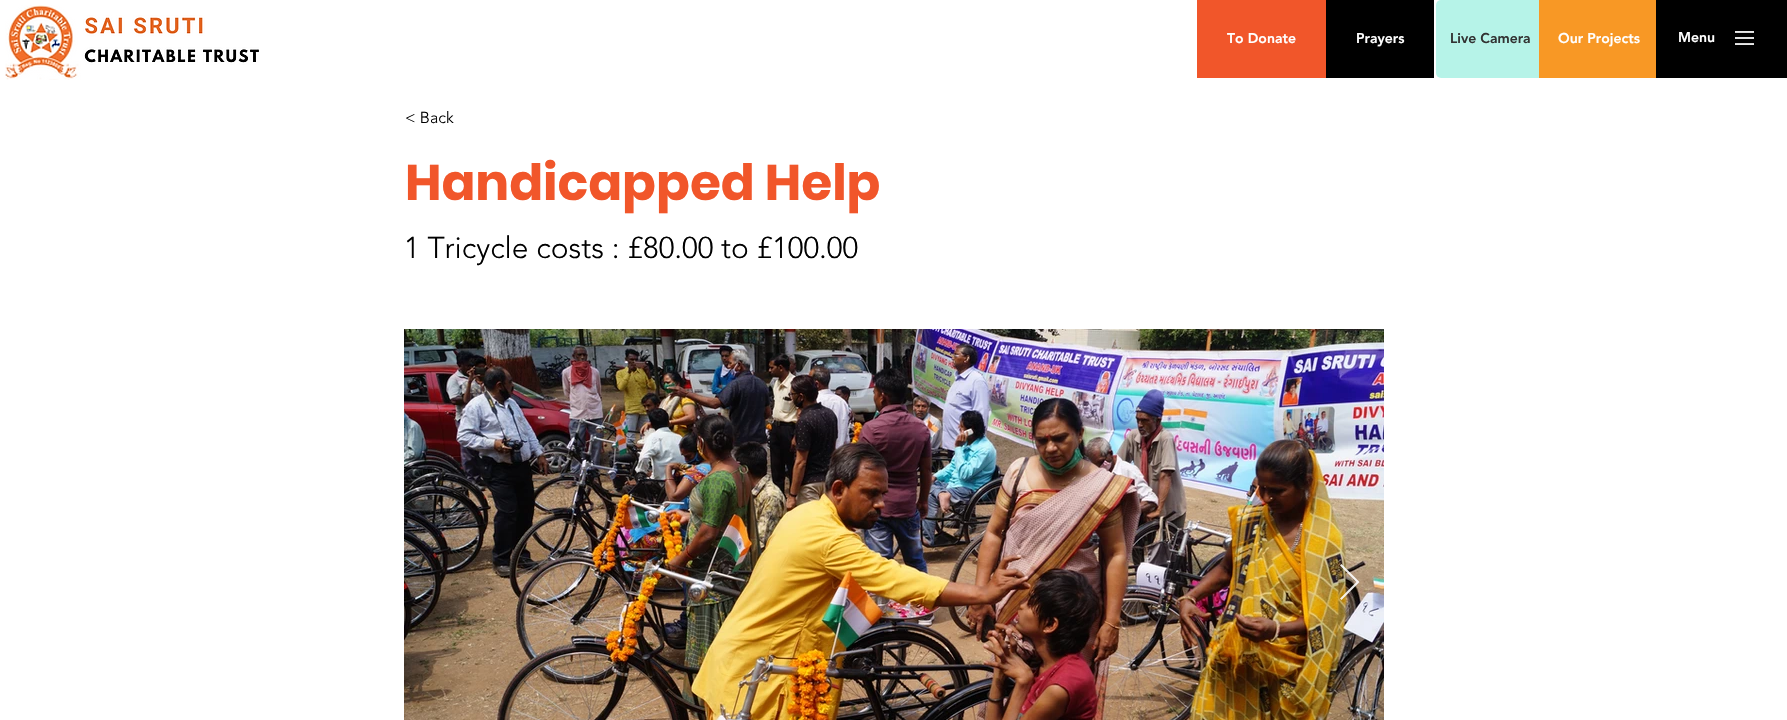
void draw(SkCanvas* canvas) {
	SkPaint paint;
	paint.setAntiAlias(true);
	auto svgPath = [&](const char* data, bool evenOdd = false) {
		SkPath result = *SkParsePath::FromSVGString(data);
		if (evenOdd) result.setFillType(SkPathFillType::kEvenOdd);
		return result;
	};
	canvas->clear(0xffffffff);
	canvas->drawImageRect(SkImages::DeferredFromEncodedData(SkData::MakeFromFileName("img1.png")), SkRect::MakeXYWH(5, 5, 254, 75), SkSamplingOptions());
	paint.setColor(0xfff1562a);
	canvas->drawRect(SkRect::MakeXYWH(1197, 0, 129, 78), paint);
	SkFont f1(fontMgr->matchFamilyStyle("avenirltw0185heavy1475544", SkFontStyle(900, SkFontStyle::kNormal_Width, SkFontStyle::kUpright_Slant)), 14);
	f1.setSubpixel(true);
	paint.setColor(0xffffffff);
	canvas->drawString("To Donate", 1227, 43, f1, paint);
	paint.setColor(0xff000000);
	canvas->drawRect(SkRect::MakeXYWH(1326, 0, 108, 78), paint);
	paint.setColor(0xffffffff);
	canvas->drawString("Prayers", 1356, 43, f1, paint);
	paint.setColor(0xffb6f3e8);
	canvas->drawRoundRect(SkRect::MakeXYWH(1436, 0, 108, 78), 5, 5, paint);
	paint.setColor(0xff323232);
	canvas->drawString("Live Camera", 1450, 43, f1, paint);
	paint.setColor(0xfff89825);
	canvas->drawRect(SkRect::MakeXYWH(1539, 0, 117, 78), paint);
	paint.setColor(0xffffffff);
	canvas->drawString("Our Projects", 1558, 43, f1, paint);
	paint.setColor(0xff000000);
	canvas->drawRect(SkRect::MakeXYWH(1656, 0, 131, 78), paint);
	paint.setColor(0xffffffff);
	canvas->drawString("Menu", 1678, 42, f1, paint);
	canvas->drawImageRect(SkImages::DeferredFromEncodedData(SkData::MakeFromFileName("img2.png")), SkRect::MakeXYWH(1735, 31, 19, 14), SkSamplingOptions());
	SkFont f2(fontMgr->matchFamilyStyle("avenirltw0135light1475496", SkFontStyle(300, SkFontStyle::kNormal_Width, SkFontStyle::kUpright_Slant)), 16);
	f2.setSubpixel(true);
	paint.setColor(0xff000000);
	canvas->drawString("< Back", 405, 123, f2, paint);
	SkFont f3(fontMgr->matchFamilyStyle("Poppins", SkFontStyle::Bold()), 50);
	f3.setSubpixel(true);
	paint.setColor(0xfff1562a);
	canvas->drawString("Handicapped Help", 405, 200, f3, paint);
	SkFont f4(fontMgr->matchFamilyStyle("avenirltw0135light1475496", SkFontStyle(300, SkFontStyle::kNormal_Width, SkFontStyle::kUpright_Slant)), 30);
	f4.setSubpixel(true);
	paint.setColor(0xff000000);
	canvas->drawString("1 Tricycle costs : £80.00 to £100.00", 404, 258, f4, paint);
	canvas->drawImageRect(SkImages::DeferredFromEncodedData(SkData::MakeFromFileName("img3.png")), SkRect::MakeXYWH(404, 329, 980, 391), SkSamplingOptions());
	paint.setColor(0xe6ffffff);
	canvas->drawPath(svgPath("M1340 565.5L1341.5 564L1359.5 582L1341.5 600L1340 598.5L1356.5 582Z"), paint);
}
